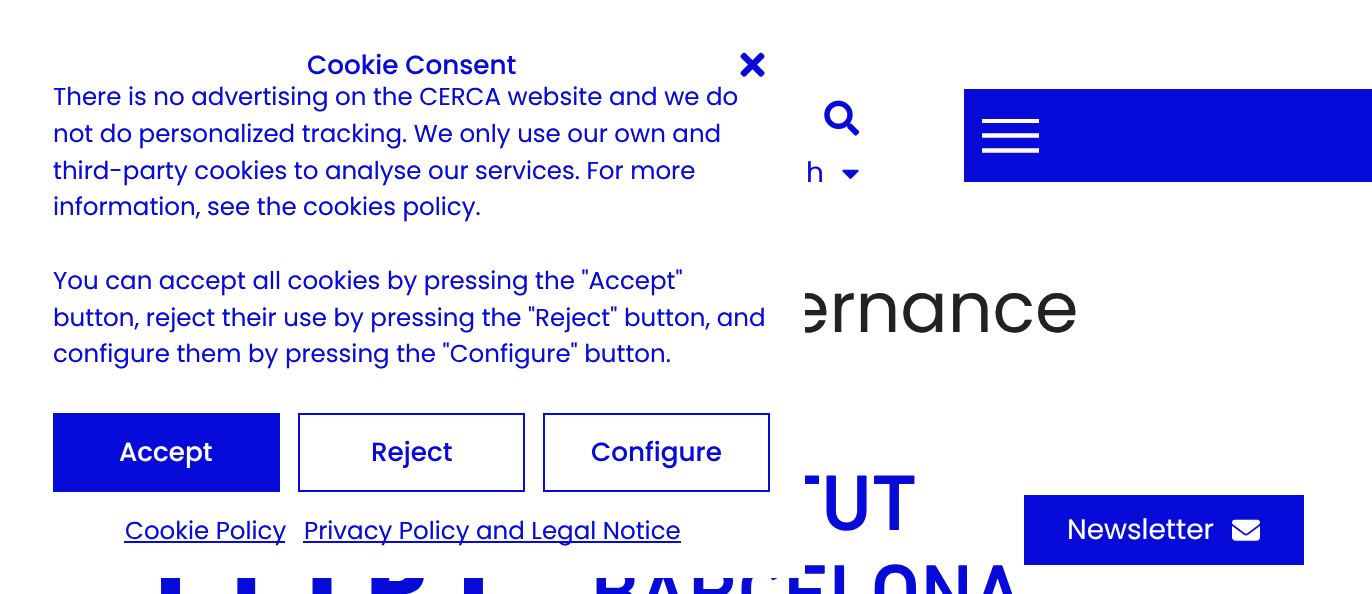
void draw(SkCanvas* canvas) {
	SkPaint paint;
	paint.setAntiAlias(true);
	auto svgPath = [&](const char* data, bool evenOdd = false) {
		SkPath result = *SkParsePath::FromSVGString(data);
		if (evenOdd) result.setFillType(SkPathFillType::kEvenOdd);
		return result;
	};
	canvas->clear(0xffffffff);
	SkFont f1(fontMgr->matchFamilyStyle("Poppins", SkFontStyle::Normal()), 70);
	f1.setSubpixel(true);
	paint.setColor(0xff222222);
	canvas->drawString("ernance", 786, 332, f1, paint);
	canvas->drawImageRect(SkImages::DeferredFromEncodedData(SkData::MakeFromFileName("img4.png")), SkRect::MakeXYWH(161, 475, 852, 119), SkSamplingOptions());
	paint.setColor(0xffffffff);
	canvas->drawRect(SkRect::MakeXYWH(161, 293, 644, 285), paint);
	SkFont f2(fontMgr->matchFamilyStyle("Poppins", SkFontStyle(500, SkFontStyle::kNormal_Width, SkFontStyle::kUpright_Slant)), 26.25);
	f2.setSubpixel(true);
	paint.setColor(0xff070bd9);
	canvas->drawString("Cookie Consent", 307, 74, f2, paint);
	canvas->drawImageRect(SkImages::DeferredFromEncodedData(SkData::MakeFromFileName("img1.png")), SkRect::MakeXYWH(740, 52, 25, 25), SkSamplingOptions());
	SkFont f3(fontMgr->matchFamilyStyle("Poppins", SkFontStyle::Normal()), 24.5);
	f3.setSubpixel(true);
	canvas->drawString("There is no advertising on the CERCA website and we do", 53, 105, f3, paint);
	canvas->drawString("not do personalized tracking. We only use our own and", 53, 142, f3, paint);
	canvas->drawString("third-party cookies to analyse our services. For more", 53, 179, f3, paint);
	canvas->drawString("information, see the cookies policy.", 53, 215, f3, paint);
	canvas->drawString("You can accept all cookies by pressing the \"Accept\"", 53, 289, f3, paint);
	canvas->drawString("button, reject their use by pressing the \"Reject\" button, and", 53, 326, f3, paint);
	canvas->drawString("configure them by pressing the \"Configure\" button.", 53, 362, f3, paint);
	canvas->drawRect(SkRect::MakeXYWH(53, 413, 227, 79), paint);
	paint.setColor(0xffffffff);
	canvas->drawString("Accept", 119, 461, f2, paint);
	paint.setStroke(true);
	paint.setStrokeWidth(2);
	paint.setColor(0xff070bd9);
	canvas->drawRect(SkRect::MakeXYWH(299, 414, 225, 77), paint);
	paint.setStroke(false);
	canvas->drawString("Reject", 371, 461, f2, paint);
	paint.setStroke(true);
	canvas->drawRect(SkRect::MakeXYWH(544, 414, 225, 77), paint);
	paint.setStroke(false);
	canvas->drawString("Configure", 591, 461, f2, paint);
	canvas->drawRect(SkRect::MakeXYWH(124, 541, 161, 2), paint);
	canvas->drawString("Cookie Policy", 125, 539, f3, paint);
	canvas->drawRect(SkRect::MakeXYWH(303, 541, 378, 2), paint);
	canvas->drawString("Privacy Policy and Legal Notice", 304, 539, f3, paint);
	canvas->drawImageRect(SkImages::DeferredFromEncodedData(SkData::MakeFromFileName("img2.png")), SkRect::MakeXYWH(824, 100, 36, 36), SkSamplingOptions());
	SkFont f4(fontMgr->matchFamilyStyle("Poppins", SkFontStyle::Normal()), 28);
	f4.setSubpixel(true);
	canvas->drawString("h", 806, 182, f4, paint);
	canvas->drawImageRect(SkImages::DeferredFromEncodedData(SkData::MakeFromFileName("img3.png")), SkRect::MakeXYWH(842, 169, 17, 10), SkSamplingOptions());
	canvas->drawRect(SkRect::MakeXYWH(964, 89, 408, 93), paint);
	paint.setColor(0xffffffff);
	canvas->drawRect(SkRect::MakeXYWH(982, 119, 57, 4), paint);
	paint.setStroke(true);
	paint.setStrokeWidth(4.4);
	canvas->drawPath(svgPath("M982 135.5H1039M982 150.5H1039"), paint);
	paint.setStroke(false);
	paint.setColor(0xff070bd9);
	canvas->drawRect(SkRect::MakeXYWH(1024, 495, 280, 70), paint);
	paint.setColor(0xffffffff);
	canvas->drawString("Newsletter", 1067, 539, f4, paint);
	canvas->drawImageRect(SkImages::DeferredFromEncodedData(SkData::MakeFromFileName("img5.png")), SkRect::MakeXYWH(1232, 519, 28, 22), SkSamplingOptions());
}
